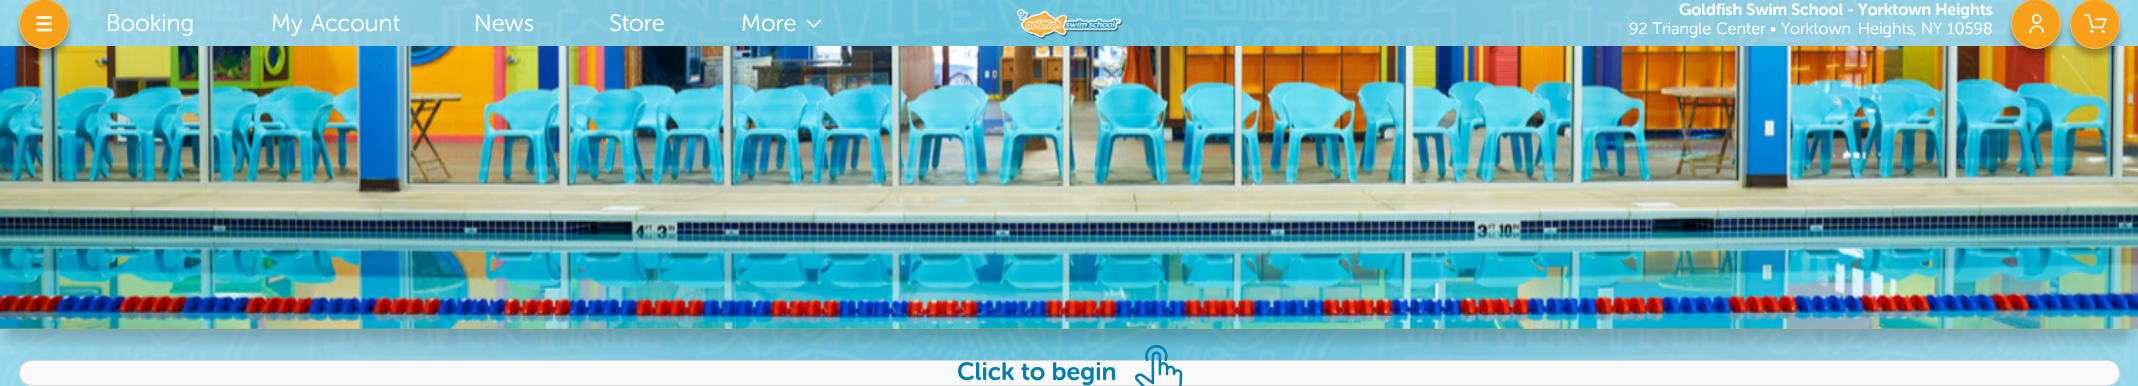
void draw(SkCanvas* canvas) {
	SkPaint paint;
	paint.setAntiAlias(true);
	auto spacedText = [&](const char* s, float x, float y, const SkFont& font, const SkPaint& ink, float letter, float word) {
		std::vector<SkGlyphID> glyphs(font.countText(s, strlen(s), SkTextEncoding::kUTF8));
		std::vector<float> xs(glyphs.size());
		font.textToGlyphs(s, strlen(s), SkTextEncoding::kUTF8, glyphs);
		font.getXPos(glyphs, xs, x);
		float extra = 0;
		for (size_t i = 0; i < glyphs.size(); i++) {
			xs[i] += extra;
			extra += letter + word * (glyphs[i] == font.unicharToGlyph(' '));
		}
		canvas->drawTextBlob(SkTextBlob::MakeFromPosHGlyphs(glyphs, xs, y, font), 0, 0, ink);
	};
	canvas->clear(0xffffffff);
	canvas->drawImageRect(SkImages::DeferredFromEncodedData(SkData::MakeFromFileName("img1.png")), SkRect::MakeXYWH(0, 0, 2138, 386), SkSamplingOptions());
	paint.setColor(0x33000000);
	paint.setMaskFilter(SkMaskFilter::MakeBlur(kNormal_SkBlurStyle, 6));
	canvas->drawRect(SkRect::MakeXYWH(6, 71, 2127, 270), paint);
	paint.setMaskFilter(nullptr);
	paint.setColor(0xfff7a11a);
	canvas->drawRect(SkRect::MakeXYWH(0, 328, 2138, 1), paint);
	canvas->drawImageRect(SkImages::DeferredFromEncodedData(SkData::MakeFromFileName("img7.png")), SkRect::MakeXYWH(0, 46, 2138, 283), SkSamplingOptions());
	paint.setColor(0x4d000000);
	paint.setMaskFilter(SkMaskFilter::MakeBlur(kNormal_SkBlurStyle, 3));
	canvas->drawRoundRect(SkRect::MakeXYWH(19, 6, 50, 50), 25, 25, paint);
	paint.setMaskFilter(nullptr);
	paint.setColor(0xfff7a11a);
	canvas->drawCircle(44, 24, 25, paint);
	paint.setStroke(true);
	paint.setStrokeWidth(1);
	paint.setColor(0x4dffffff);
	canvas->drawCircle(44, 24, 24.5, paint);
	canvas->drawImageRect(SkImages::DeferredFromEncodedData(SkData::MakeFromFileName("img2.png")), SkRect::MakeXYWH(36, 16, 16, 16), SkSamplingOptions());
	SkFont f1(fontMgr->matchFamilyStyle("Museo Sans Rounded", SkFontStyle(300, SkFontStyle::kNormal_Width, SkFontStyle::kUpright_Slant)), 23.75);
	f1.setSubpixel(true);
	paint.setStroke(false);
	paint.setColor(0xffffffff);
	canvas->drawString("Booking", 106, 31, f1, paint);
	spacedText("My Account", 271, 31, f1, paint, 0, 2);
	canvas->drawString("News", 474, 31, f1, paint);
	canvas->drawString("Store", 609, 31, f1, paint);
	canvas->drawString("More", 741, 31, f1, paint);
	canvas->drawImageRect(SkImages::DeferredFromEncodedData(SkData::MakeFromFileName("img3.png")), SkRect::MakeXYWH(806, 19, 16, 9), SkSamplingOptions());
	canvas->drawImageRect(SkImages::DeferredFromEncodedData(SkData::MakeFromFileName("img4.png")), SkRect::MakeXYWH(1017, 8, 106, 31), SkSamplingOptions());
	SkFont f2(fontMgr->matchFamilyStyle("Museo Sans Rounded", SkFontStyle(600, SkFontStyle::kNormal_Width, SkFontStyle::kUpright_Slant)), 16.25);
	f2.setSubpixel(true);
	canvas->drawString("Goldfish Swim School - Yorktown Heights", 1679, 15, f2, paint);
	SkFont f3(fontMgr->matchFamilyStyle("Museo Sans Rounded", SkFontStyle(300, SkFontStyle::kNormal_Width, SkFontStyle::kUpright_Slant)), 16.25);
	f3.setSubpixel(true);
	spacedText("92 Triangle Center", 1629, 34, f3, paint, 0, 1);
	canvas->drawString("•", 1770, 34, f3, paint);
	spacedText("Yorktown Heights", 1781, 34, f3, paint, 0, 3);
	spacedText("NY 10598", 1921, 34, f3, paint, 0, 1);
	canvas->drawString(",", 1913, 34, f3, paint);
	paint.setColor(0x4d000000);
	paint.setMaskFilter(SkMaskFilter::MakeBlur(kNormal_SkBlurStyle, 3));
	canvas->drawRoundRect(SkRect::MakeXYWH(2011, 6, 50, 50), 25, 25, paint);
	paint.setMaskFilter(nullptr);
	paint.setColor(0xfff7a11a);
	canvas->drawCircle(2036, 24, 25, paint);
	paint.setStroke(true);
	paint.setColor(0x4dffffff);
	canvas->drawCircle(2036, 24, 24.5, paint);
	canvas->drawImageRect(SkImages::DeferredFromEncodedData(SkData::MakeFromFileName("img5.png")), SkRect::MakeXYWH(2029, 14, 15, 20), SkSamplingOptions());
	paint.setStroke(false);
	paint.setColor(0x4d000000);
	paint.setMaskFilter(SkMaskFilter::MakeBlur(kNormal_SkBlurStyle, 3));
	canvas->drawRoundRect(SkRect::MakeXYWH(2070, 6, 50, 50), 25, 25, paint);
	paint.setMaskFilter(nullptr);
	paint.setColor(0xfff7a11a);
	canvas->drawCircle(2095, 24, 25, paint);
	paint.setStroke(true);
	paint.setColor(0x4dffffff);
	canvas->drawCircle(2095, 24, 24.5, paint);
	canvas->drawImageRect(SkImages::DeferredFromEncodedData(SkData::MakeFromFileName("img6.png")), SkRect::MakeXYWH(2084, 14, 23, 20), SkSamplingOptions());
	paint.setStroke(false);
	paint.setColor(0xfff9f9f9);
	canvas->drawRoundRect(SkRect::MakeXYWH(19, 360, 2101, 26), 13, 13, paint);
	paint.setStroke(true);
	paint.setColor(0x26000000);
	canvas->drawRoundRect(SkRect::MakeXYWH(19.5, 360.5, 2100, 25), 12.5, 12.5, paint);
	SkFont f4(fontMgr->matchFamilyStyle("Museo Sans Rounded", SkFontStyle(600, SkFontStyle::kNormal_Width, SkFontStyle::kUpright_Slant)), 25);
	f4.setSubpixel(true);
	paint.setStroke(false);
	paint.setColor(0xff007fb1);
	canvas->drawString("Click to begin", 957, 380, f4, paint);
	canvas->drawImageRect(SkImages::DeferredFromEncodedData(SkData::MakeFromFileName("img8.png")), SkRect::MakeXYWH(1135, 344, 48, 42), SkSamplingOptions());
}
